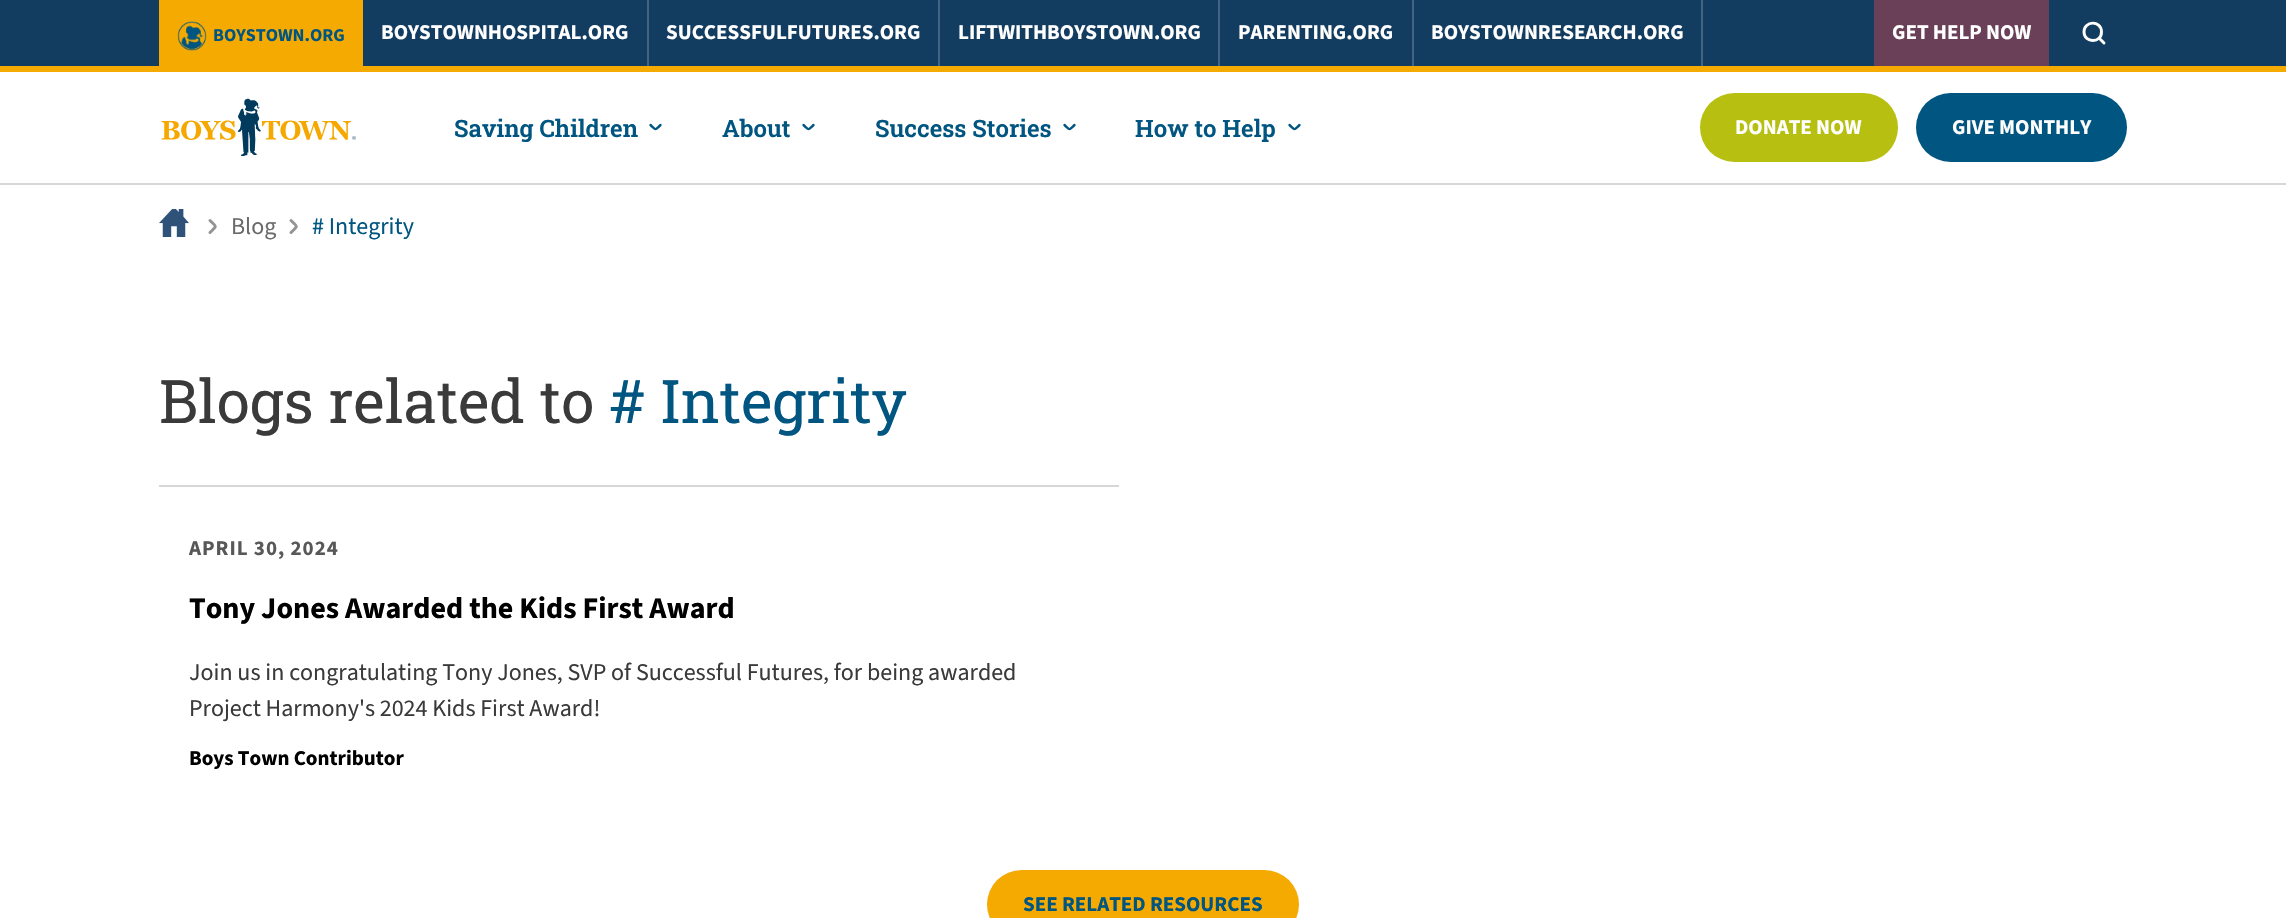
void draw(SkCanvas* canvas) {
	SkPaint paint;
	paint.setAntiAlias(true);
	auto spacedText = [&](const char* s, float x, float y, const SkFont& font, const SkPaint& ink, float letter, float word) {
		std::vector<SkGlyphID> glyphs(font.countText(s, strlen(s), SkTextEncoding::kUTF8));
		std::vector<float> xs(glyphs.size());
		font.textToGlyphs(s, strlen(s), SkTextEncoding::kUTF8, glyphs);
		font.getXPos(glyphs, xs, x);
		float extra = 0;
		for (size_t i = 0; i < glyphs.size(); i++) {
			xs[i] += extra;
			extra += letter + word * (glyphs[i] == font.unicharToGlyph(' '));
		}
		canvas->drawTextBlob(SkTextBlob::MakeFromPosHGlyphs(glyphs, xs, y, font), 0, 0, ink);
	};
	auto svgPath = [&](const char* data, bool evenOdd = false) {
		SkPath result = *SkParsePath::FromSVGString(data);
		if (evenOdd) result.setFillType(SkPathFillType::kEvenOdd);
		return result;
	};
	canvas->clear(0xffffffff);
	paint.setColor(0xff133d60);
	canvas->drawRect(SkRect::MakeXYWH(0, 0, 2286, 66), paint);
	paint.setColor(0xfff4aa00);
	canvas->drawRect(SkRect::MakeXYWH(0, 66, 2286, 6), paint);
	canvas->drawRect(SkRect::MakeXYWH(159, 0, 204, 66), paint);
	canvas->drawImageRect(SkImages::DeferredFromEncodedData(SkData::MakeFromFileName("img1.png")), SkRect::MakeXYWH(177, 21, 30, 30), SkSamplingOptions());
	SkFont f1(fontMgr->matchFamilyStyle("Source Sans 3", SkFontStyle::Bold()), 18);
	f1.setSubpixel(true);
	paint.setColor(0xff005581);
	canvas->drawString("BOYSTOWN.ORG", 213, 41, f1, paint);
	paint.setColor(0xff426480);
	canvas->drawRect(SkRect::MakeXYWH(1701, 0, 2, 66), paint);
	SkFont f2(fontMgr->matchFamilyStyle("Source Sans 3", SkFontStyle::Bold()), 21);
	f2.setSubpixel(true);
	paint.setColor(0xffffffff);
	canvas->drawString("BOYSTOWNHOSPITAL.ORG", 381, 39, f2, paint);
	paint.setColor(0xff426480);
	canvas->drawRect(SkRect::MakeXYWH(647, 0, 2, 66), paint);
	paint.setColor(0xffffffff);
	canvas->drawString("SUCCESSFULFUTURES.ORG", 666, 39, f2, paint);
	paint.setColor(0xff426480);
	canvas->drawRect(SkRect::MakeXYWH(938, 0, 2, 66), paint);
	paint.setColor(0xffffffff);
	canvas->drawString("LIFTWITHBOYSTOWN.ORG", 958, 39, f2, paint);
	paint.setColor(0xff426480);
	canvas->drawRect(SkRect::MakeXYWH(1218, 0, 2, 66), paint);
	paint.setColor(0xffffffff);
	canvas->drawString("PARENTING.ORG", 1238, 39, f2, paint);
	paint.setColor(0xff426480);
	canvas->drawRect(SkRect::MakeXYWH(1412, 0, 2, 66), paint);
	paint.setColor(0xffffffff);
	canvas->drawString("BOYSTOWNRESEARCH.ORG", 1431, 39, f2, paint);
	paint.setColor(0xff6a4059);
	canvas->drawRect(SkRect::MakeXYWH(1874, 0, 175, 66), paint);
	paint.setColor(0xffffffff);
	canvas->drawString("GET HELP NOW", 1892, 39, f2, paint);
	paint.setStroke(true);
	paint.setStrokeWidth(2.9);
	paint.setStrokeCap(SkPaint::kRound_Cap);
	paint.setStrokeJoin(SkPaint::kRound_Join);
	canvas->drawPath(svgPath("M2084 32C2084 20.5 2101 20 2101.5 31.5C2102 43.5 2084 43.5 2084 32ZM2099 38L2104 43"), paint);
	paint.setStroke(false);
	paint.setColor(0xffd7d7d7);
	canvas->drawRect(SkRect::MakeXYWH(0, 183, 2286, 2), paint);
	canvas->drawImageRect(SkImages::DeferredFromEncodedData(SkData::MakeFromFileName("img2.png")), SkRect::MakeXYWH(161, 98, 195, 58), SkSamplingOptions());
	SkFont f3(fontMgr->matchFamilyStyle("Roboto Slab", SkFontStyle(600, SkFontStyle::kNormal_Width, SkFontStyle::kUpright_Slant)), 24);
	f3.setSubpixel(true);
	paint.setColor(0xff005581);
	canvas->drawString("Saving Children", 454, 137, f3, paint);
	paint.setStroke(true);
	paint.setStrokeWidth(2.4);
	canvas->drawPath(svgPath("M650.5 125C656.5 130.5 654.5 130.5 660.5 125"), paint);
	paint.setStroke(false);
	canvas->drawString("About", 722, 137, f3, paint);
	paint.setStroke(true);
	canvas->drawPath(svgPath("M803.5 125C809.5 130.5 807.5 130.5 813.5 125"), paint);
	paint.setStroke(false);
	canvas->drawString("Success Stories", 875, 137, f3, paint);
	paint.setStroke(true);
	canvas->drawPath(svgPath("M1064.5 125C1070.5 130.5 1068.5 130.5 1074.5 125"), paint);
	paint.setStroke(false);
	canvas->drawString("How to Help", 1135, 137, f3, paint);
	paint.setStroke(true);
	canvas->drawPath(svgPath("M1289.5 125C1295.5 130.5 1293.5 130.5 1299.5 125"), paint);
	paint.setStroke(false);
	paint.setColor(0xffb7bf10);
	canvas->drawRoundRect(SkRect::MakeXYWH(1700, 93, 198, 69), 34.5, 34.5, paint);
	paint.setColor(0xffffffff);
	canvas->drawString("DONATE NOW", 1735, 134, f2, paint);
	paint.setColor(0xff005581);
	canvas->drawRoundRect(SkRect::MakeXYWH(1916, 93, 211, 69), 34.5, 34.5, paint);
	paint.setColor(0xffffffff);
	canvas->drawString("GIVE MONTHLY", 1952, 134, f2, paint);
	canvas->drawImageRect(SkImages::DeferredFromEncodedData(SkData::MakeFromFileName("img3.png")), SkRect::MakeXYWH(159, 209, 30, 28), SkSamplingOptions());
	paint.setStroke(true);
	paint.setStrokeWidth(3);
	paint.setColor(0xff949494);
	canvas->drawPath(svgPath("M210 232.5C217 225.5 217 227.5 210 220.5"), paint);
	SkFont f4(fontMgr->matchFamilyStyle("Source Sans 3", SkFontStyle::Normal()), 24);
	f4.setSubpixel(true);
	paint.setStroke(false);
	paint.setColor(0xff6b6b6b);
	canvas->drawString("Blog", 231, 234, f4, paint);
	paint.setStroke(true);
	paint.setColor(0xff949494);
	canvas->drawPath(svgPath("M291 232.5C298 225.5 298 227.5 291 220.5"), paint);
	paint.setStroke(false);
	paint.setColor(0xff005581);
	canvas->drawString("# Integrity", 312, 234, f4, paint);
	SkFont f5(fontMgr->matchFamilyStyle("Roboto Slab", SkFontStyle::Normal()), 60);
	f5.setSubpixel(true);
	paint.setColor(0xff3a3a3a);
	canvas->drawString("Blogs related to", 159, 423, f5, paint);
	paint.setColor(0xff005581);
	canvas->drawString("# Integrity", 609, 423, f5, paint);
	paint.setColor(0xffd7d7d7);
	canvas->drawRect(SkRect::MakeXYWH(159, 485, 960, 2), paint);
	paint.setColor(0xff585858);
	spacedText("APRIL 30, 2024", 189, 555, f2, paint, 1, 0);
	SkFont f6(fontMgr->matchFamilyStyle("Source Sans 3", SkFontStyle::Bold()), 30);
	f6.setSubpixel(true);
	paint.setColor(0xff000000);
	canvas->drawString("Tony Jones Awarded the Kids First Award", 189, 618, f6, paint);
	paint.setColor(0xff3a3a3a);
	canvas->drawString("Join us in congratulating Tony Jones, SVP of Successful Futures, for being awarded", 189, 680, f4, paint);
	canvas->drawString("Project Harmony's 2024 Kids First Award!", 189, 716, f4, paint);
	paint.setColor(0xff000000);
	canvas->drawString("Boys Town Contributor", 189, 765, f2, paint);
	paint.setColor(0xfff4aa00);
	canvas->drawRoundRect(SkRect::MakeXYWH(987, 870, 312, 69), 34.5, 34.5, paint);
	paint.setColor(0xff005581);
	canvas->drawString("SEE RELATED RESOURCES", 1023, 911, f2, paint);
}
